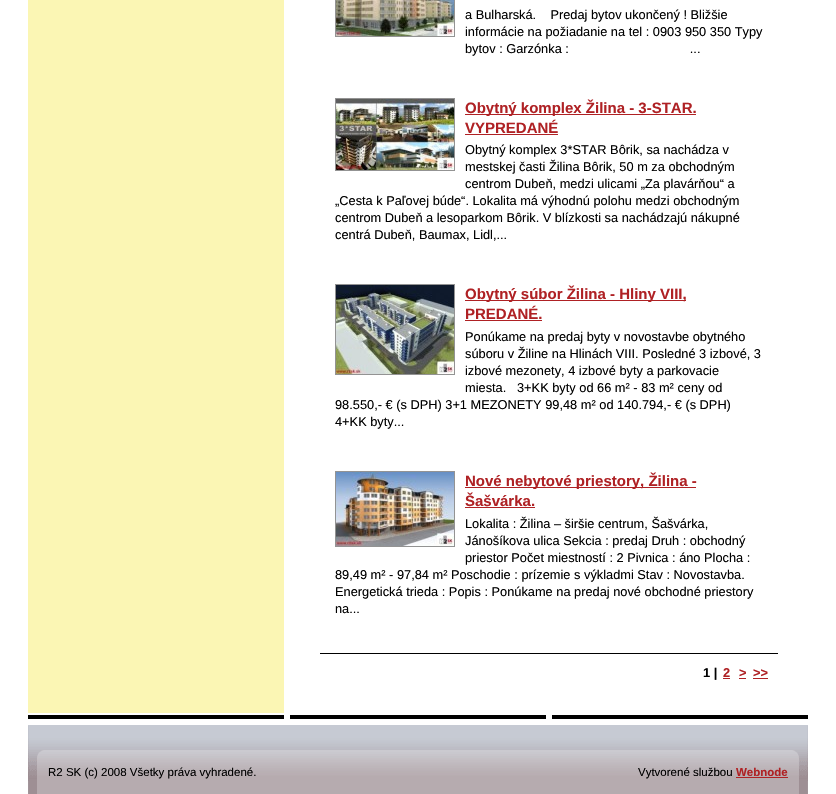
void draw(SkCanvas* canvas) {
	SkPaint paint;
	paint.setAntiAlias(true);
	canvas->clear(0xffffffff);
	paint.setColor(0xfffbf6b4);
	canvas->drawRect(SkRect::MakeXYWH(28, 0, 256, 713), paint);
	paint.setStroke(true);
	paint.setStrokeWidth(1);
	paint.setColor(0xff939393);
	canvas->drawRect(SkRect::MakeXYWH(335.5, -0.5, 119, 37), paint);
	canvas->drawImageRect(SkImages::DeferredFromEncodedData(SkData::MakeFromFileName("img1.png")), SkRect::MakeXYWH(336, 0, 118, 36), SkSamplingOptions());
	SkFont f1(fontMgr->matchFamilyStyle("Liberation Sans", SkFontStyle::Normal()), 12.8);
	f1.setSubpixel(true);
	paint.setStroke(false);
	paint.setColor(0xff000000);
	canvas->drawString("a Bulharská.    Predaj bytov ukončený ! Bližšie", 465, 19, f1, paint);
	canvas->drawString("informácie na požiadanie na tel : 0903 950 350 Typy", 465, 36, f1, paint);
	canvas->drawString("bytov : Garzónka :                                  ...", 465, 53, f1, paint);
	paint.setStroke(true);
	paint.setColor(0xff939393);
	canvas->drawRect(SkRect::MakeXYWH(335.5, 98.5, 119, 72), paint);
	canvas->drawImageRect(SkImages::DeferredFromEncodedData(SkData::MakeFromFileName("img2.png")), SkRect::MakeXYWH(336, 99, 118, 71), SkSamplingOptions());
	paint.setStroke(false);
	paint.setColor(0xffaf2124);
	canvas->drawRect(SkRect::MakeXYWH(465, 114, 231, 1), paint);
	SkFont f2(fontMgr->matchFamilyStyle("Liberation Sans", SkFontStyle::Bold()), 15);
	f2.setSubpixel(true);
	canvas->drawString("Obytný komplex Žilina - 3-STAR.", 465, 113, f2, paint);
	canvas->drawString("VYPREDANÉ", 465, 133, f2, paint);
	canvas->drawRect(SkRect::MakeXYWH(465, 134, 93, 1), paint);
	paint.setColor(0xff000000);
	canvas->drawString("Obytný komplex 3*STAR Bôrik, sa nachádza v", 465, 154, f1, paint);
	canvas->drawString("mestskej časti Žilina Bôrik, 50 m za obchodným", 465, 171, f1, paint);
	canvas->drawString("centrom Dubeň, medzi ulicami „Za plavárňou“ a", 465, 188, f1, paint);
	canvas->drawString("„Cesta k Paľovej búde“. Lokalita má výhodnú polohu medzi obchodným", 335, 205, f1, paint);
	canvas->drawString("centrom Dubeň a lesoparkom Bôrik. V blízkosti sa nachádzajú nákupné", 335, 222, f1, paint);
	canvas->drawString("centrá Dubeň, Baumax, Lidl,...", 335, 239, f1, paint);
	paint.setStroke(true);
	paint.setColor(0xff939393);
	canvas->drawRect(SkRect::MakeXYWH(335.5, 284.5, 119, 90), paint);
	canvas->drawImageRect(SkImages::DeferredFromEncodedData(SkData::MakeFromFileName("img3.png")), SkRect::MakeXYWH(336, 285, 118, 89), SkSamplingOptions());
	paint.setStroke(false);
	paint.setColor(0xffaf2124);
	canvas->drawRect(SkRect::MakeXYWH(465, 300, 221, 1), paint);
	canvas->drawString("Obytný súbor Žilina - Hliny VIII,", 465, 299, f2, paint);
	canvas->drawString("PREDANÉ.", 465, 319, f2, paint);
	canvas->drawRect(SkRect::MakeXYWH(465, 320, 77, 1), paint);
	paint.setColor(0xff000000);
	canvas->drawString("Ponúkame na predaj byty v novostavbe obytného", 465, 341, f1, paint);
	canvas->drawString("súboru v Žiline na Hlinách VIII. Posledné 3 izbové, 3", 465, 358, f1, paint);
	canvas->drawString("izbové mezonety, 4 izbové byty a parkovacie", 465, 375, f1, paint);
	canvas->drawString("miesta.", 465, 392, f1, paint);
	canvas->drawString("3+KK byty od 66 m² - 83 m² ceny od", 517, 392, f1, paint);
	canvas->drawString("98.550,- € (s DPH) 3+1 MEZONETY 99,48 m² od 140.794,- € (s DPH)", 335, 409, f1, paint);
	canvas->drawString("4+KK byty...", 335, 426, f1, paint);
	paint.setStroke(true);
	paint.setColor(0xff939393);
	canvas->drawRect(SkRect::MakeXYWH(335.5, 471.5, 119, 75), paint);
	canvas->drawImageRect(SkImages::DeferredFromEncodedData(SkData::MakeFromFileName("img4.png")), SkRect::MakeXYWH(336, 472, 118, 74), SkSamplingOptions());
	paint.setStroke(false);
	paint.setColor(0xffaf2124);
	canvas->drawRect(SkRect::MakeXYWH(465, 487, 231, 1), paint);
	canvas->drawString("Nové nebytové priestory, Žilina -", 465, 486, f2, paint);
	canvas->drawString("Šašvárka.", 465, 506, f2, paint);
	canvas->drawRect(SkRect::MakeXYWH(465, 507, 70, 1), paint);
	paint.setColor(0xff000000);
	canvas->drawString("Lokalita : Žilina – širšie centrum, Šašvárka,", 465, 528, f1, paint);
	canvas->drawString("Jánošíkova ulica Sekcia : predaj Druh : obchodný", 465, 545, f1, paint);
	canvas->drawString("priestor Počet miestností : 2 Pivnica : áno Plocha :", 465, 562, f1, paint);
	canvas->drawString("89,49 m² - 97,84 m² Poschodie : prízemie s výkladmi Stav : Novostavba.", 335, 579, f1, paint);
	canvas->drawString("Energetická trieda : Popis : Ponúkame na predaj nové obchodné priestory", 335, 596, f1, paint);
	canvas->drawString("na...", 335, 613, f1, paint);
	canvas->drawRect(SkRect::MakeXYWH(320, 653, 458, 1), paint);
	SkFont f3(fontMgr->matchFamilyStyle("Liberation Sans", SkFontStyle::Bold()), 12.8);
	f3.setSubpixel(true);
	canvas->drawString("1 |", 703, 677, f3, paint);
	paint.setColor(0xffaf2124);
	canvas->drawString("2", 723, 677, f3, paint);
	canvas->drawRect(SkRect::MakeXYWH(723, 678, 7, 1), paint);
	canvas->drawString(">", 739, 677, f3, paint);
	canvas->drawRect(SkRect::MakeXYWH(739, 678, 7, 1), paint);
	canvas->drawString(">>", 753, 677, f3, paint);
	canvas->drawRect(SkRect::MakeXYWH(753, 678, 15, 1), paint);
	canvas->drawImageRect(SkImages::DeferredFromEncodedData(SkData::MakeFromFileName("img5.png")), SkRect::MakeXYWH(28, 713, 780, 12), SkSamplingOptions());
	canvas->drawImageRect(SkImages::DeferredFromEncodedData(SkData::MakeFromFileName("img6.png")), SkRect::MakeXYWH(28, 725, 780, 69), SkSamplingOptions());
	SkFont f4(fontMgr->matchFamilyStyle("Liberation Sans", SkFontStyle::Normal()), 11.5);
	f4.setSubpixel(true);
	paint.setColor(0xff000000);
	canvas->drawString("R2 SK (c) 2008 Všetky práva vyhradené.", 48, 776, f4, paint);
	canvas->drawString("Vytvorené službou", 638, 776, f4, paint);
	SkFont f5(fontMgr->matchFamilyStyle("Liberation Sans", SkFontStyle::Bold()), 11.5);
	f5.setSubpixel(true);
	paint.setColor(0xffaf2124);
	canvas->drawString("Webnode", 736, 776, f5, paint);
	canvas->drawRect(SkRect::MakeXYWH(736, 777, 52, 1), paint);
}
